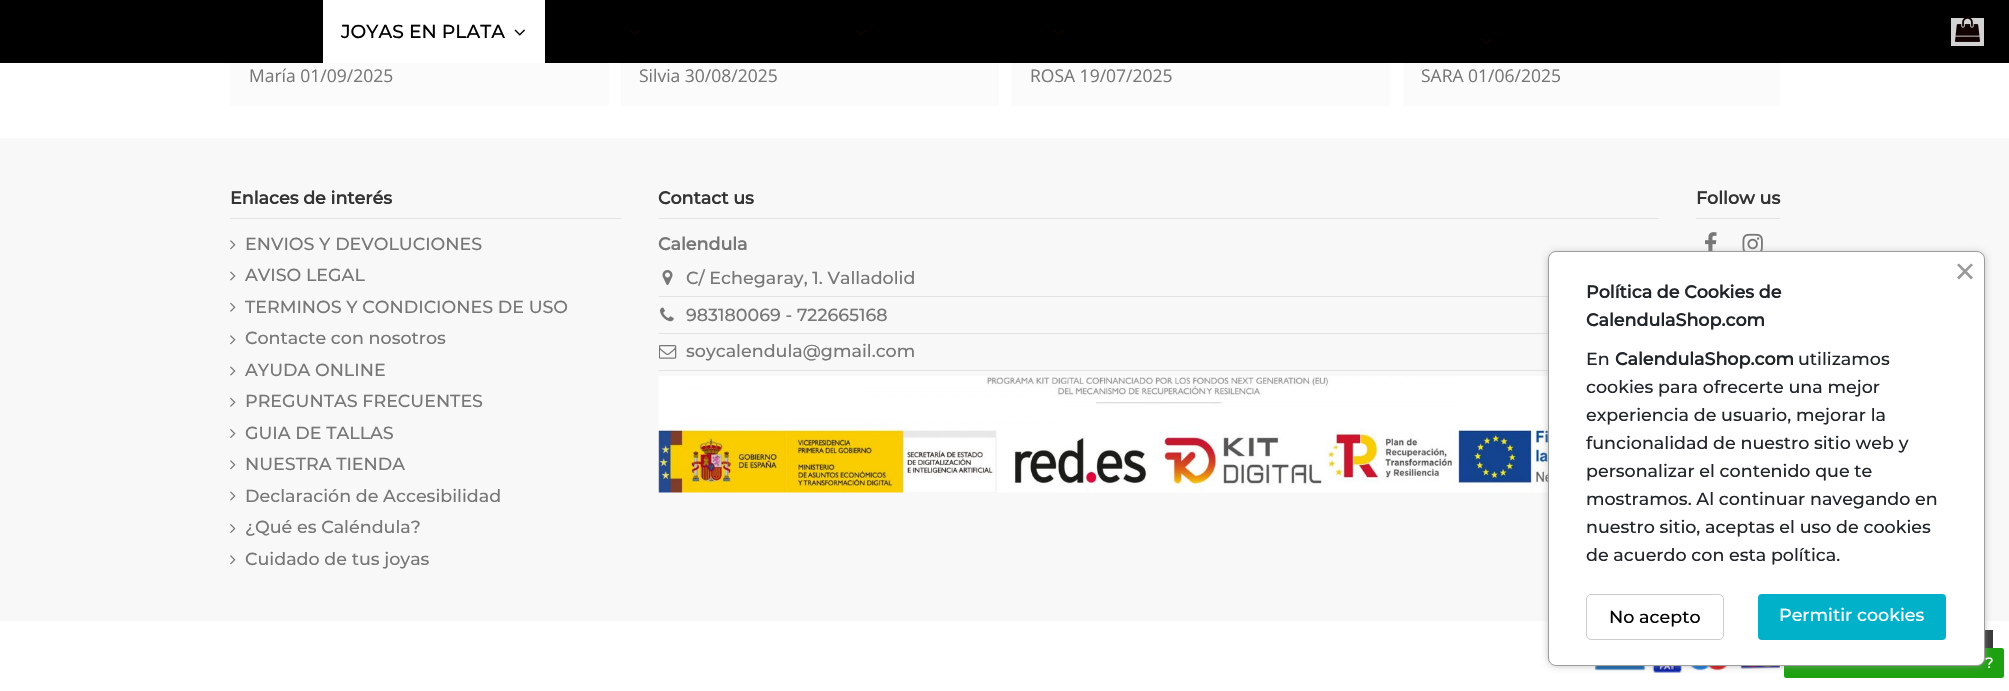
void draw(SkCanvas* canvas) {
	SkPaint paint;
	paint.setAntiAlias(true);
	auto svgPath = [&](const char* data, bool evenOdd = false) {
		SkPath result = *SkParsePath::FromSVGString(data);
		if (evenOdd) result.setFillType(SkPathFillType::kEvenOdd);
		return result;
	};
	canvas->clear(0xffffffff);
	paint.setColor(0xff000000);
	canvas->drawRect(SkRect::MakeXYWH(0, 0, 2009, 63), paint);
	paint.setColor(0xffffffff);
	canvas->drawRect(SkRect::MakeXYWH(323, 0, 222, 63), paint);
	SkFont f1(fontMgr->matchFamilyStyle("Montserrat", SkFontStyle(100, SkFontStyle::kNormal_Width, SkFontStyle::kUpright_Slant)), 18.75);
	f1.setSubpixel(true);
	paint.setColor(0xff000000);
	canvas->drawString("JOYAS EN PLATA", 341, 38, f1, paint);
	canvas->drawImageRect(SkImages::DeferredFromEncodedData(SkData::MakeFromFileName("img1.png")), SkRect::MakeXYWH(514, 29, 11, 7), SkSamplingOptions());
	canvas->drawImageRect(SkImages::DeferredFromEncodedData(SkData::MakeFromFileName("img2.png")), SkRect::MakeXYWH(629, 29, 11, 7), SkSamplingOptions());
	canvas->drawImageRect(SkImages::DeferredFromEncodedData(SkData::MakeFromFileName("img3.png")), SkRect::MakeXYWH(856, 29, 10, 7), SkSamplingOptions());
	canvas->drawImageRect(SkImages::DeferredFromEncodedData(SkData::MakeFromFileName("img4.png")), SkRect::MakeXYWH(1053, 29, 11, 7), SkSamplingOptions());
	canvas->drawImageRect(SkImages::DeferredFromEncodedData(SkData::MakeFromFileName("img5.png")), SkRect::MakeXYWH(1481, 38, 10, 6), SkSamplingOptions());
	paint.setColor(0xffd3d3d3);
	canvas->drawRect(SkRect::MakeXYWH(1951, 18, 33, 28), paint);
	canvas->drawImageRect(SkImages::DeferredFromEncodedData(SkData::MakeFromFileName("img6.png")), SkRect::MakeXYWH(1955, 17, 25, 25), SkSamplingOptions());
	paint.setColor(0xfffbfbfb);
	canvas->drawRect(SkRect::MakeXYWH(230, 63, 379, 43), paint);
	SkFont f2(fontMgr->matchFamilyStyle("Open Sans", SkFontStyle::Normal()), 17.5);
	f2.setSubpixel(true);
	paint.setColor(0xff777777);
	canvas->drawString("María 01/09/2025", 249, 82, f2, paint);
	paint.setColor(0xfffbfbfb);
	canvas->drawRect(SkRect::MakeXYWH(621, 63, 378, 43), paint);
	paint.setColor(0xff777777);
	canvas->drawString("Silvia 30/08/2025", 639, 82, f2, paint);
	paint.setColor(0xfffbfbfb);
	canvas->drawRect(SkRect::MakeXYWH(1011, 63, 379, 43), paint);
	paint.setColor(0xff777777);
	canvas->drawString("ROSA 19/07/2025", 1030, 82, f2, paint);
	paint.setColor(0xfffbfbfb);
	canvas->drawRect(SkRect::MakeXYWH(1403, 63, 377, 43), paint);
	paint.setColor(0xff777777);
	canvas->drawString("SARA 01/06/2025", 1421, 82, f2, paint);
	paint.setColor(0xfff8f8f8);
	canvas->drawRect(SkRect::MakeXYWH(0, 138, 2009, 483), paint);
	paint.setColor(0xffe3e3e3);
	canvas->drawRect(SkRect::MakeXYWH(230, 218, 391, 1), paint);
	SkFont f3(fontMgr->matchFamilyStyle("Montserrat", SkFontStyle::Bold()), 17.5);
	f3.setSubpixel(true);
	paint.setColor(0xff333333);
	canvas->drawString("Enlaces de interés", 230, 204, f3, paint);
	canvas->drawImageRect(SkImages::DeferredFromEncodedData(SkData::MakeFromFileName("img7.png")), SkRect::MakeXYWH(230, 240, 6, 10), SkSamplingOptions());
	SkFont f4(fontMgr->matchFamilyStyle("Montserrat", SkFontStyle(100, SkFontStyle::kNormal_Width, SkFontStyle::kUpright_Slant)), 17.5);
	f4.setSubpixel(true);
	paint.setColor(0xff777777);
	canvas->drawString("ENVIOS Y DEVOLUCIONES", 245, 250, f4, paint);
	canvas->drawImageRect(SkImages::DeferredFromEncodedData(SkData::MakeFromFileName("img8.png")), SkRect::MakeXYWH(230, 271, 6, 10), SkSamplingOptions());
	canvas->drawString("AVISO LEGAL", 245, 281, f4, paint);
	canvas->drawImageRect(SkImages::DeferredFromEncodedData(SkData::MakeFromFileName("img9.png")), SkRect::MakeXYWH(230, 302, 6, 10), SkSamplingOptions());
	canvas->drawString("TERMINOS Y CONDICIONES DE USO", 245, 313, f4, paint);
	canvas->drawImageRect(SkImages::DeferredFromEncodedData(SkData::MakeFromFileName("img7.png")), SkRect::MakeXYWH(230, 335, 6, 10), SkSamplingOptions());
	canvas->drawString("Contacte con nosotros", 245, 344, f4, paint);
	canvas->drawImageRect(SkImages::DeferredFromEncodedData(SkData::MakeFromFileName("img8.png")), SkRect::MakeXYWH(230, 366, 6, 10), SkSamplingOptions());
	canvas->drawString("AYUDA ONLINE", 245, 376, f4, paint);
	canvas->drawImageRect(SkImages::DeferredFromEncodedData(SkData::MakeFromFileName("img9.png")), SkRect::MakeXYWH(230, 397, 6, 10), SkSamplingOptions());
	canvas->drawString("PREGUNTAS FRECUENTES", 245, 407, f4, paint);
	canvas->drawImageRect(SkImages::DeferredFromEncodedData(SkData::MakeFromFileName("img10.png")), SkRect::MakeXYWH(230, 429, 6, 9), SkSamplingOptions());
	canvas->drawString("GUIA DE TALLAS", 245, 439, f4, paint);
	canvas->drawImageRect(SkImages::DeferredFromEncodedData(SkData::MakeFromFileName("img7.png")), SkRect::MakeXYWH(230, 460, 6, 10), SkSamplingOptions());
	canvas->drawString("NUESTRA TIENDA", 245, 470, f4, paint);
	canvas->drawImageRect(SkImages::DeferredFromEncodedData(SkData::MakeFromFileName("img8.png")), SkRect::MakeXYWH(230, 491, 6, 10), SkSamplingOptions());
	canvas->drawString("Declaración de Accesibilidad", 245, 502, f4, paint);
	canvas->drawImageRect(SkImages::DeferredFromEncodedData(SkData::MakeFromFileName("img10.png")), SkRect::MakeXYWH(230, 524, 6, 9), SkSamplingOptions());
	canvas->drawString("¿Qué es Caléndula?", 245, 533, f4, paint);
	canvas->drawImageRect(SkImages::DeferredFromEncodedData(SkData::MakeFromFileName("img7.png")), SkRect::MakeXYWH(230, 555, 6, 10), SkSamplingOptions());
	canvas->drawString("Cuidado de tus joyas", 245, 565, f4, paint);
	paint.setColor(0xffe3e3e3);
	canvas->drawRect(SkRect::MakeXYWH(659, 218, 1000, 1), paint);
	paint.setColor(0xff333333);
	canvas->drawString("Contact us", 658, 204, f3, paint);
	paint.setColor(0xff777777);
	canvas->drawString("Calendula", 658, 250, f3, paint);
	canvas->drawImageRect(SkImages::DeferredFromEncodedData(SkData::MakeFromFileName("img11.png")), SkRect::MakeXYWH(662, 270, 11, 15), SkSamplingOptions());
	canvas->drawString("C/ Echegaray, 1. Valladolid", 686, 284, f4, paint);
	paint.setColor(0xffe2e2e2);
	canvas->drawRect(SkRect::MakeXYWH(659, 296, 889, 1), paint);
	canvas->drawImageRect(SkImages::DeferredFromEncodedData(SkData::MakeFromFileName("img12.png")), SkRect::MakeXYWH(660, 307, 14, 15), SkSamplingOptions());
	paint.setColor(0xff777777);
	canvas->drawString("983180069 - 722665168", 686, 321, f4, paint);
	paint.setColor(0xffe2e2e2);
	canvas->drawRect(SkRect::MakeXYWH(659, 333, 889, 1), paint);
	canvas->drawImageRect(SkImages::DeferredFromEncodedData(SkData::MakeFromFileName("img13.png")), SkRect::MakeXYWH(659, 345, 18, 14), SkSamplingOptions());
	paint.setColor(0xff777777);
	canvas->drawString("soycalendula@gmail.com", 686, 357, f4, paint);
	paint.setColor(0xffe2e2e2);
	canvas->drawRect(SkRect::MakeXYWH(659, 370, 889, 1), paint);
	canvas->drawImageRect(SkImages::DeferredFromEncodedData(SkData::MakeFromFileName("img14.png")), SkRect::MakeXYWH(658, 376, 890, 117), SkSamplingOptions());
	paint.setColor(0xffe3e3e3);
	canvas->drawRect(SkRect::MakeXYWH(1696, 218, 84, 1), paint);
	paint.setColor(0xff333333);
	canvas->drawString("Follow us", 1696, 204, f3, paint);
	canvas->drawImageRect(SkImages::DeferredFromEncodedData(SkData::MakeFromFileName("img15.png")), SkRect::MakeXYWH(1705, 232, 12, 19), SkSamplingOptions());
	canvas->drawImageRect(SkImages::DeferredFromEncodedData(SkData::MakeFromFileName("img16.png")), SkRect::MakeXYWH(1742, 233, 21, 18), SkSamplingOptions());
	paint.setColor(0xff1da110);
	canvas->drawRoundRect(SkRect::MakeXYWH(1784, 648, 220, 30), 2.5, 2.5, paint);
	SkFont f5(fontMgr->matchFamilyStyle("Montserrat", SkFontStyle(100, SkFontStyle::kNormal_Width, SkFontStyle::kUpright_Slant)), 15);
	f5.setSubpixel(true);
	paint.setColor(0xffffffff);
	canvas->drawString("?", 1985, 668, f5, paint);
	canvas->drawImageRect(SkImages::DeferredFromEncodedData(SkData::MakeFromFileName("img17.png")), SkRect::MakeXYWH(1595, 666, 185, 7), SkSamplingOptions());
	paint.setColor(0xff393939);
	canvas->drawRect(SkRect::MakeXYWH(1985, 630, 8, 18), paint);
	paint.setColor(0xff9e9e9e);
	paint.setMaskFilter(SkMaskFilter::MakeBlur(kNormal_SkBlurStyle, 4.5));
	canvas->drawRoundRect(SkRect::MakeXYWH(1550, 254, 433, 410), 5, 5, paint);
	paint.setMaskFilter(nullptr);
	paint.setColor(0xffffffff);
	canvas->drawRoundRect(SkRect::MakeXYWH(1548.5, 251.5, 436, 414), 7.5, 7.5, paint);
	paint.setStroke(true);
	paint.setStrokeWidth(1);
	paint.setColor(0xff9e9e9e);
	canvas->drawRoundRect(SkRect::MakeXYWH(1548.5, 251.5, 436, 414), 7.5, 7.5, paint);
	paint.setStroke(false);
	paint.setColor(0xff999999);
	canvas->drawPath(svgPath("M1957 277.5L1971 263.5L1973 265L1959 279.5Z"), paint);
	canvas->drawPath(svgPath("M1959 263.5L1973 277.5L1971 279.5L1957 265Z"), paint);
	paint.setColor(0xff212529);
	canvas->drawString("Política de Cookies de", 1586, 298, f3, paint);
	canvas->drawString("CalendulaShop.com", 1586, 326, f3, paint);
	canvas->drawString("En", 1586, 365, f4, paint);
	canvas->drawString("CalendulaShop.com", 1615, 365, f3, paint);
	canvas->drawString("utilizamos", 1798, 365, f4, paint);
	canvas->drawString("cookies para ofrecerte una mejor", 1586, 393, f4, paint);
	canvas->drawString("experiencia de usuario, mejorar la", 1586, 421, f4, paint);
	canvas->drawString("funcionalidad de nuestro sitio web y", 1586, 449, f4, paint);
	canvas->drawString("personalizar el contenido que te", 1586, 477, f4, paint);
	canvas->drawString("mostramos. Al continuar navegando en", 1586, 505, f4, paint);
	canvas->drawString("nuestro sitio, aceptas el uso de cookies", 1586, 533, f4, paint);
	canvas->drawString("de acuerdo con esta política.", 1586, 561, f4, paint);
	paint.setStroke(true);
	paint.setColor(0xffcccccc);
	canvas->drawRoundRect(SkRect::MakeXYWH(1586.5, 594.5, 137, 45), 4.5, 4.5, paint);
	paint.setStroke(false);
	paint.setColor(0xff000000);
	canvas->drawString("No acepto", 1609, 623, f4, paint);
	paint.setColor(0xff00b1c9);
	canvas->drawRoundRect(SkRect::MakeXYWH(1758, 594, 188, 46), 4, 4, paint);
	paint.setColor(0xffffffff);
	canvas->drawString("Permitir cookies", 1779, 621, f4, paint);
}
